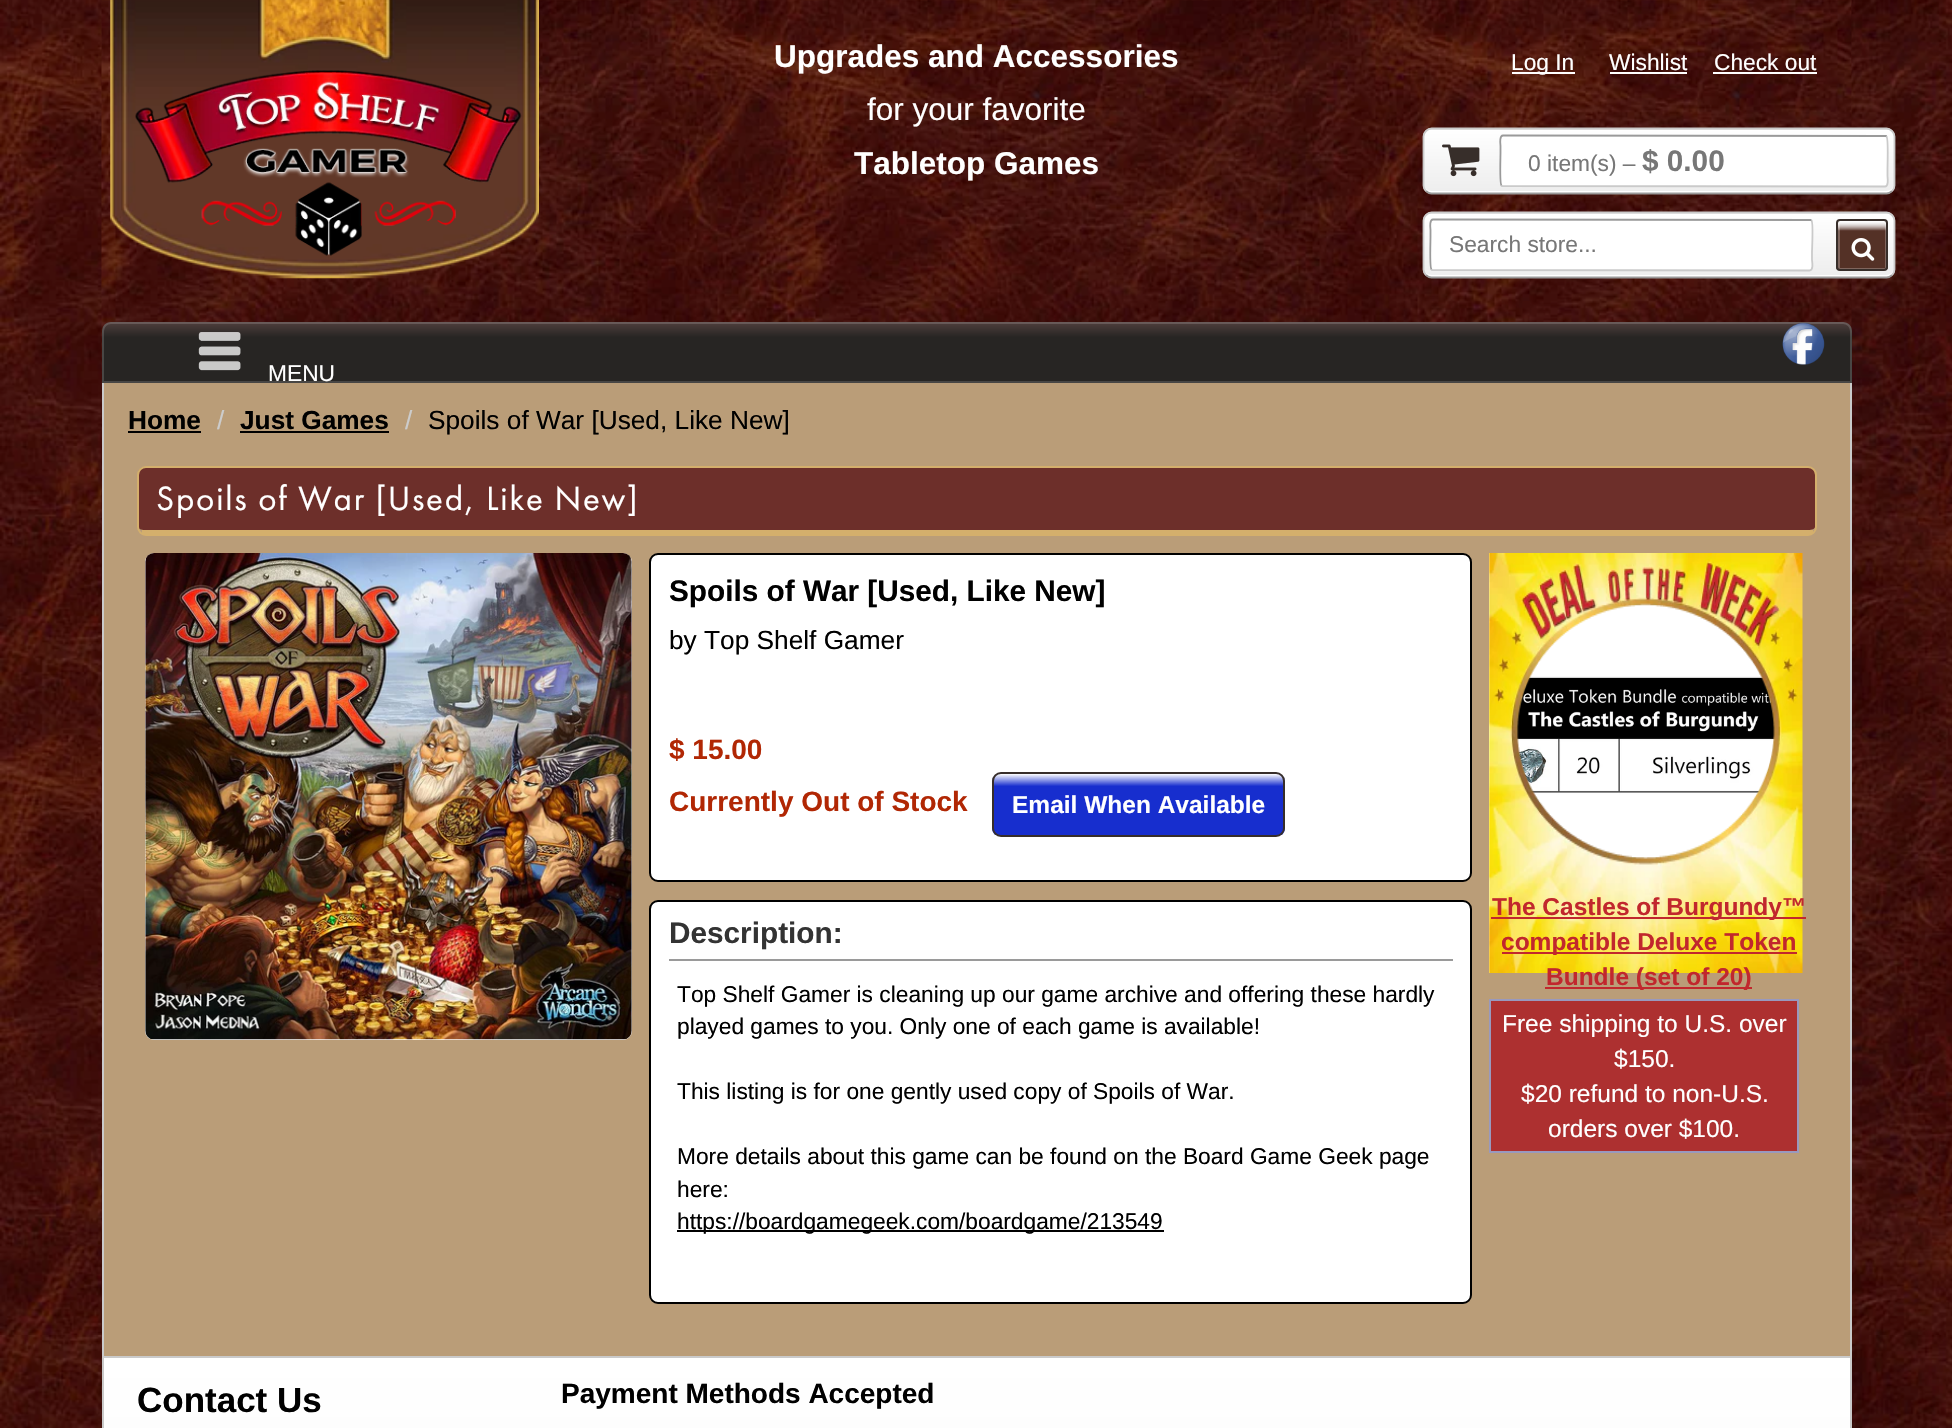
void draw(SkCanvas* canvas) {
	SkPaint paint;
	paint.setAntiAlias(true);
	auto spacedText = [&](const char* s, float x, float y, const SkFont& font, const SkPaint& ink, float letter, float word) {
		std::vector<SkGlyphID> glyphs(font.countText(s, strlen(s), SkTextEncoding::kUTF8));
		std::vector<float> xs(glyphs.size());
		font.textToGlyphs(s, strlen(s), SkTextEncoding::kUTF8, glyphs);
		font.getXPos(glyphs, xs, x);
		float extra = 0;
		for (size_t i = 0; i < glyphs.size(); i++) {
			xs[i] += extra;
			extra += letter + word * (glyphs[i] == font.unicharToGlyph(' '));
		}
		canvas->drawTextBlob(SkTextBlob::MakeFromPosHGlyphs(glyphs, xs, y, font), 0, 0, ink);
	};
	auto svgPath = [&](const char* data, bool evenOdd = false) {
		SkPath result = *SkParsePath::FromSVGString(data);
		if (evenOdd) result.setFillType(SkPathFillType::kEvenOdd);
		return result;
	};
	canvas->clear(0xffffffff);
	canvas->drawImageRect(SkImages::DeferredFromEncodedData(SkData::MakeFromFileName("img1.png")), SkRect::MakeXYWH(0, 0, 1952, 1428), SkSamplingOptions());
	canvas->drawImageRect(SkImages::DeferredFromEncodedData(SkData::MakeFromFileName("img2.png")), SkRect::MakeXYWH(101, 0, 1751, 1428), SkSamplingOptions());
	canvas->drawImageRect(SkImages::DeferredFromEncodedData(SkData::MakeFromFileName("img3.png")), SkRect::MakeXYWH(110, 0, 429, 279), SkSamplingOptions());
	canvas->drawImageRect(SkImages::DeferredFromEncodedData(SkData::MakeFromFileName("img4.png")), SkRect::MakeXYWH(135, 70, 387, 186), SkSamplingOptions());
	SkFont f1(fontMgr->matchFamilyStyle("Liberation Sans", SkFontStyle::Bold()), 31.5);
	f1.setSubpixel(true);
	paint.setColor(0xffffffff);
	canvas->drawString("Upgrades and Accessories", 774, 67, f1, paint);
	SkFont f2(fontMgr->matchFamilyStyle("Liberation Sans", SkFontStyle::Normal()), 31.5);
	f2.setSubpixel(true);
	canvas->drawString("for your favorite", 867, 120, f2, paint);
	canvas->drawString("Tabletop Games", 854, 174, f1, paint);
	canvas->drawRect(SkRect::MakeXYWH(1512, 72, 63, 2), paint);
	SkFont f3(fontMgr->matchFamilyStyle("Liberation Sans", SkFontStyle::Normal()), 22.75);
	f3.setSubpixel(true);
	canvas->drawString("Log In", 1511, 70, f3, paint);
	canvas->drawString("Wishlist", 1609, 70, f3, paint);
	canvas->drawRect(SkRect::MakeXYWH(1610, 72, 77, 2), paint);
	canvas->drawString("Check out", 1714, 70, f3, paint);
	canvas->drawRect(SkRect::MakeXYWH(1713, 72, 104, 2), paint);
	canvas->save();
	canvas->clipPath(svgPath("M1432 128H1886C1891 128 1895 132 1895 137V185C1895 190 1891 194 1886 194H1432C1427 194 1423 190 1423 185V137C1423 132 1427 128 1432 128Z"), true);
	{
		const SkColor colors[] = {0xffffffff, 0xffededed};
		const float stops[] = {0, 1};
		const SkPoint ends[] = {{1659, 66}, {1659, 130}};
		paint.setShader(SkGradientShader::MakeLinear(ends, colors, stops, 2, SkTileMode::kClamp));
		paint.setAlpha(255);
	}
	canvas->drawRect(SkRect::MakeXYWH(1423, 128, 472, 2), paint);
	{
		const SkColor colors[] = {0xffffffff, 0xffededed};
		const float stops[] = {0, 1};
		const SkPoint ends[] = {{1659, 129}, {1659, 193}};
		paint.setShader(SkGradientShader::MakeLinear(ends, colors, stops, 2, SkTileMode::kClamp));
		paint.setAlpha(255);
	}
	canvas->drawRect(SkRect::MakeXYWH(1423, 130, 472, 63), paint);
	canvas->restore();
	paint.setShader(nullptr);
	paint.setColor(0xffffffff);
	canvas->drawPath(svgPath("M1425 188C1426 191 1429 193 1432 193H1887C1891 193 1894 190 1894 186V184C1894 188 1890 191 1886 191H1432C1429 191 1427 190 1425 188Z"), paint);
	paint.setStroke(true);
	paint.setStrokeWidth(1.8);
	paint.setColor(0xff9a9a9a);
	canvas->drawPath(svgPath("M1892 191C1890.5 192.5 1888.5 193.5 1886.5 193.5H1431.5C1429.5 193.5 1427.5 192.5 1426 191"), paint);
	paint.setColor(0xffcacaca);
	canvas->drawPath(svgPath("M1426 191C1424.5 189.5 1423.5 187.5 1423.5 185.5V136.5C1423.5 134.5 1424.5 132.5 1426 131C1427.5 129.5 1429.5 128.5 1431.5 128.5H1886.5C1888.5 128.5 1890.5 129.5 1892 131C1893.5 132.5 1894.5 134.5 1894.5 136.5V185.5C1894.5 187.5 1893.5 189.5 1892 191"), paint);
	canvas->drawImageRect(SkImages::DeferredFromEncodedData(SkData::MakeFromFileName("img5.png")), SkRect::MakeXYWH(1442, 144, 38, 33), SkSamplingOptions());
	paint.setStroke(false);
	paint.setColor(0xffffffff);
	canvas->drawRoundRect(SkRect::MakeXYWH(1500, 135, 388, 52), 4, 4, paint);
	paint.setStroke(true);
	paint.setColor(0xffcacaca);
	canvas->drawPath(svgPath("M1886.5 136.5C1888.5 138.5 1887.5 164.5 1887.5 168.5V176C1887.5 177 1889 186.5 1885 186.5L1502 186L1501.5 185.5"), paint);
	paint.setColor(0xff9a9a9a);
	canvas->drawPath(svgPath("M1501.5 185.5C1499.5 183.5 1500.5 157.5 1500.5 153.5V146C1500.5 145 1499 135.5 1503 135.5L1886 136L1886.5 136.5"), paint);
	paint.setStroke(false);
	paint.setColor(0xff777777);
	canvas->drawString("0", 1528, 171, f3, paint);
	canvas->drawString("item(s) –", 1547, 171, f3, paint);
	SkFont f4(fontMgr->matchFamilyStyle("Liberation Sans", SkFontStyle::Bold()), 29.75);
	f4.setSubpixel(true);
	canvas->drawString("$ 0.00", 1642, 171, f4, paint);
	canvas->save();
	canvas->clipPath(svgPath("M1432 212H1886C1891 212 1895 216 1895 221V269C1895 274 1891 278 1886 278H1432C1427 278 1423 274 1423 269V221C1423 216 1427 212 1432 212Z"), true);
	{
		const SkColor colors[] = {0xffffffff, 0xffededed};
		const float stops[] = {0, 1};
		const SkPoint ends[] = {{1659, 150}, {1659, 214}};
		paint.setShader(SkGradientShader::MakeLinear(ends, colors, stops, 2, SkTileMode::kClamp));
		paint.setAlpha(255);
	}
	canvas->drawRect(SkRect::MakeXYWH(1423, 212, 472, 2), paint);
	{
		const SkColor colors[] = {0xffffffff, 0xffededed};
		const float stops[] = {0, 1};
		const SkPoint ends[] = {{1659, 213}, {1659, 277}};
		paint.setShader(SkGradientShader::MakeLinear(ends, colors, stops, 2, SkTileMode::kClamp));
		paint.setAlpha(255);
	}
	canvas->drawRect(SkRect::MakeXYWH(1423, 214, 472, 63), paint);
	canvas->restore();
	paint.setShader(nullptr);
	paint.setColor(0xffffffff);
	canvas->drawPath(svgPath("M1425 272C1426 275 1429 277 1432 277H1887C1891 277 1894 274 1894 270V268C1894 272 1890 275 1886 275H1432C1429 275 1427 274 1425 272Z"), paint);
	paint.setStroke(true);
	paint.setColor(0xff9a9a9a);
	canvas->drawPath(svgPath("M1892 275C1890.5 276.5 1888.5 277.5 1886.5 277.5H1431.5C1429.5 277.5 1427.5 276.5 1426 275"), paint);
	paint.setColor(0xffcacaca);
	canvas->drawPath(svgPath("M1426 275C1424.5 273.5 1423.5 271.5 1423.5 269.5V220.5C1423.5 218.5 1424.5 216.5 1426 215C1427.5 213.5 1429.5 212.5 1431.5 212.5H1886.5C1888.5 212.5 1890.5 213.5 1892 215C1893.5 216.5 1894.5 218.5 1894.5 220.5V269.5C1894.5 271.5 1893.5 273.5 1892 275"), paint);
	paint.setStroke(false);
	paint.setColor(0xffffffff);
	canvas->drawRoundRect(SkRect::MakeXYWH(1430, 219, 383, 52), 4, 4, paint);
	paint.setStroke(true);
	paint.setColor(0xffcacaca);
	canvas->drawPath(svgPath("M1811.5 220.5C1813.5 222.5 1812 248.5 1812 252.5V260C1812 261 1814 270.5 1809.5 270.5L1432 270L1431.5 269.5"), paint);
	paint.setColor(0xff9a9a9a);
	canvas->drawPath(svgPath("M1431.5 269.5C1429.5 267.5 1430.5 241.5 1430.5 237.5V230C1430.5 229 1429 219.5 1433 219.5L1810.5 220L1811.5 220.5"), paint);
	paint.setStroke(false);
	paint.setColor(0xff777777);
	canvas->drawString("Search store...", 1449, 252, f3, paint);
	canvas->save();
	canvas->clipPath(svgPath("M1840 219H1884C1886 219 1888 221 1888 223V267C1888 269 1886 271 1884 271H1840C1838 271 1836 269 1836 267V223C1836 221 1838 219 1840 219Z"), true);
	{
		const SkColor colors[] = {0x1affffff, 0xff543126};
		const float stops[] = {0, 0.2};
		const SkPoint ends[] = {{1862, 221}, {1862, 270}};
		paint.setShader(SkGradientShader::MakeLinear(ends, colors, stops, 2, SkTileMode::kClamp));
		paint.setAlpha(255);
	}
	canvas->drawRect(SkRect::MakeXYWH(1836, 221, 52, 49), paint);
	canvas->restore();
	paint.setStroke(true);
	paint.setStrokeWidth(2);
	paint.setShader(nullptr);
	paint.setColor(0x40ffffff);
	canvas->drawRoundRect(SkRect::MakeXYWH(1839, 222, 47, 47), 1, 1, paint);
	paint.setColor(0xff372e2a);
	canvas->drawRoundRect(SkRect::MakeXYWH(1837, 220, 50, 50), 3, 3, paint);
	canvas->drawImageRect(SkImages::DeferredFromEncodedData(SkData::MakeFromFileName("img6.png")), SkRect::MakeXYWH(1851, 238, 24, 23), SkSamplingOptions());
	paint.setStroke(false);
	{
		const SkColor colors[] = {0xff503f3d, 0xff272523};
		const float stops[] = {0, 0.25};
		const SkPoint ends[] = {{977, 322}, {977, 383}};
		paint.setShader(SkGradientShader::MakeLinear(ends, colors, stops, 2, SkTileMode::kClamp));
		paint.setAlpha(255);
	}
	canvas->drawPath(svgPath("M111 322H1843C1848 322 1852 326 1852 331V383H102V331C102 326 106 322 111 322Z"), paint);
	paint.setStroke(true);
	paint.setShader(nullptr);
	paint.setColor(0x26ffffff);
	canvas->drawPath(svgPath("M111 323H1843C1847.5 323 1851 326.5 1851 331V382H103V331C103 326.5 106.5 323 111 323Z"), paint);
	canvas->drawImageRect(SkImages::DeferredFromEncodedData(SkData::MakeFromFileName("img7.png")), SkRect::MakeXYWH(1782, 322, 43, 43), SkSamplingOptions());
	canvas->drawImageRect(SkImages::DeferredFromEncodedData(SkData::MakeFromFileName("img8.png")), SkRect::MakeXYWH(198, 332, 43, 39), SkSamplingOptions());
	paint.setStroke(false);
	paint.setColor(0xffffffff);
	canvas->drawString("MENU", 268, 381, f3, paint);
	paint.setColor(0xffba9d78);
	canvas->drawRect(SkRect::MakeXYWH(104, 383, 1746, 973), paint);
	paint.setColor(0xffcacaca);
	canvas->drawRect(SkRect::MakeXYWH(1850, 383, 2, 973), paint);
	canvas->drawRect(SkRect::MakeXYWH(102, 383, 2, 973), paint);
	SkFont f5(fontMgr->matchFamilyStyle("Liberation Sans", SkFontStyle::Bold()), 26.25);
	f5.setSubpixel(true);
	paint.setColor(0xff000000);
	canvas->drawString("Home", 128, 429, f5, paint);
	canvas->drawRect(SkRect::MakeXYWH(128, 431, 73, 2), paint);
	SkFont f6(fontMgr->matchFamilyStyle("Liberation Sans", SkFontStyle::Normal()), 26.25);
	f6.setSubpixel(true);
	paint.setColor(0xffcccccc);
	canvas->drawString("/", 217, 429, f6, paint);
	paint.setColor(0xff000000);
	canvas->drawString("Just Games", 240, 429, f5, paint);
	canvas->drawRect(SkRect::MakeXYWH(240, 431, 149, 2), paint);
	paint.setColor(0xffcccccc);
	canvas->drawString("/", 405, 429, f6, paint);
	paint.setColor(0xff000000);
	canvas->drawString("Spoils of War [Used, Like New]", 428, 429, f6, paint);
	paint.setColor(0xff6d2f2a);
	canvas->drawPath(svgPath("M145 467H1808C1812 467 1815 470 1815 474V527C1815 529 1812 530 1808 530H145C141 530 138 529 138 527V474C138 470 141 467 145 467Z"), paint);
	paint.setStroke(true);
	paint.setColor(0xffd4af6c);
	canvas->drawRoundRect(SkRect::MakeXYWH(138, 467, 1678, 68), 8, 8, paint);
	paint.setStroke(false);
	canvas->drawRect(SkRect::MakeXYWH(142, 530, 1671, 4), paint);
	SkFont f7(fontMgr->matchFamilyStyle("Futura PT", SkFontStyle::Normal()), 35);
	f7.setSubpixel(true);
	paint.setColor(0xffffffff);
	spacedText("Spoils of War [Used, Like New]", 156, 510, f7, paint, 1.75, 0);
	canvas->drawRoundRect(SkRect::MakeXYWH(145, 553, 487, 487), 9, 9, paint);
	canvas->drawImageRect(SkImages::DeferredFromEncodedData(SkData::MakeFromFileName("img9.png")), SkRect::MakeXYWH(145, 553, 487, 487), SkSamplingOptions());
	canvas->drawRoundRect(SkRect::MakeXYWH(650, 554, 821, 327), 8, 8, paint);
	paint.setStroke(true);
	paint.setColor(0xff000000);
	canvas->drawRoundRect(SkRect::MakeXYWH(650, 554, 821, 327), 8, 8, paint);
	paint.setStroke(false);
	canvas->drawString("Spoils of War [Used, Like New]", 669, 601, f4, paint);
	canvas->drawString("by Top Shelf Gamer", 669, 649, f6, paint);
	SkFont f8(fontMgr->matchFamilyStyle("Liberation Sans", SkFontStyle::Bold()), 28);
	f8.setSubpixel(true);
	paint.setColor(0xffb12704);
	canvas->drawString("$ 15.00", 669, 759, f8, paint);
	canvas->drawString("Currently Out of Stock", 669, 811, f8, paint);
	canvas->save();
	canvas->clipPath(svgPath("M1001 772H1276C1281 772 1285 776 1285 781V828C1285 833 1281 837 1276 837H1001C996 837 992 833 992 828V781C992 776 996 772 1001 772Z"), true);
	{
		const SkColor colors[] = {0xffffffff, 0xff172ece};
		const float stops[] = {0, 0.2};
		const SkPoint ends[] = {{1138, 774}, {1138, 835}};
		paint.setShader(SkGradientShader::MakeLinear(ends, colors, stops, 2, SkTileMode::kClamp));
		paint.setAlpha(255);
	}
	canvas->drawRect(SkRect::MakeXYWH(992, 774, 293, 61), paint);
	canvas->restore();
	paint.setStroke(true);
	paint.setShader(nullptr);
	paint.setColor(0xff372e2a);
	canvas->drawRoundRect(SkRect::MakeXYWH(993, 773, 291, 63), 8, 8, paint);
	SkFont f9(fontMgr->matchFamilyStyle("Liberation Sans", SkFontStyle::Bold()), 24.5);
	f9.setSubpixel(true);
	paint.setStroke(false);
	paint.setColor(0xffffffff);
	canvas->drawString("Email When Available", 1012, 813, f9, paint);
	canvas->drawRoundRect(SkRect::MakeXYWH(650, 901, 821, 402), 8, 8, paint);
	paint.setStroke(true);
	paint.setColor(0xff000000);
	canvas->drawRoundRect(SkRect::MakeXYWH(650, 901, 821, 402), 8, 8, paint);
	paint.setStroke(false);
	paint.setColor(0xff9a9a9a);
	canvas->drawRect(SkRect::MakeXYWH(669, 959, 784, 2), paint);
	paint.setColor(0xff333333);
	canvas->drawString("Description:", 669, 943, f4, paint);
	paint.setColor(0xff000000);
	canvas->drawString("Top Shelf Gamer is cleaning up our game archive and offering these hardly", 677, 1002, f3, paint);
	canvas->drawString("played games to you. Only one of each game is available!", 677, 1034, f3, paint);
	canvas->drawString("This listing is for one gently used copy of Spoils of War.", 677, 1099, f3, paint);
	canvas->drawString("More details about this game can be found on the Board Game Geek page", 677, 1164, f3, paint);
	canvas->drawString("here:", 677, 1197, f3, paint);
	canvas->drawRect(SkRect::MakeXYWH(677, 1230, 487, 2), paint);
	canvas->drawString("https://boardgamegeek.com/boardgame/213549", 677, 1229, f3, paint);
	paint.setColor(0xffffffff);
	canvas->drawRect(SkRect::MakeXYWH(1489, 553, 273, 420), paint);
	canvas->drawImageRect(SkImages::DeferredFromEncodedData(SkData::MakeFromFileName("img11.png")), SkRect::MakeXYWH(1517, 675, 258, 122), SkSamplingOptions());
	canvas->drawImageRect(SkImages::DeferredFromEncodedData(SkData::MakeFromFileName("img10.png")), SkRect::MakeXYWH(1489, 553, 314, 420), SkSamplingOptions());
	paint.setColor(0xffc1272d);
	canvas->drawRect(SkRect::MakeXYWH(1491, 917, 315, 2), paint);
	canvas->drawString("The Castles of Burgundy™", 1492, 915, f9, paint);
	canvas->drawRect(SkRect::MakeXYWH(1502, 952, 295, 2), paint);
	canvas->drawString("compatible Deluxe Token", 1501, 950, f9, paint);
	canvas->drawRect(SkRect::MakeXYWH(1545, 987, 207, 2), paint);
	canvas->drawString("Bundle (set of 20)", 1546, 985, f9, paint);
	paint.setColor(0xffad3030);
	canvas->drawRect(SkRect::MakeXYWH(1490, 1000, 308, 152), paint);
	paint.setStroke(true);
	paint.setColor(0xff9999be);
	canvas->drawRect(SkRect::MakeXYWH(1490, 1000, 308, 152), paint);
	SkFont f10(fontMgr->matchFamilyStyle("Liberation Sans", SkFontStyle::Normal()), 24.5);
	f10.setSubpixel(true);
	paint.setStroke(false);
	paint.setColor(0xffffffff);
	canvas->drawString("Free shipping to U.S. over", 1502, 1032, f10, paint);
	canvas->drawString("$150.", 1614, 1067, f10, paint);
	canvas->drawString("$20 refund to non-U.S.", 1521, 1102, f10, paint);
	canvas->drawString("orders over $100.", 1548, 1137, f10, paint);
	{
		const SkColor colors[] = {0xffffffff, 0xffededed};
		const float stops[] = {0, 1};
		const SkPoint ends[] = {{977, 1358}, {977, 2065}};
		paint.setShader(SkGradientShader::MakeLinear(ends, colors, stops, 2, SkTileMode::kClamp));
		paint.setAlpha(255);
	}
	canvas->drawRect(SkRect::MakeXYWH(104, 1358, 1746, 70), paint);
	paint.setStroke(true);
	paint.setShader(nullptr);
	paint.setColor(0xffcacaca);
	canvas->drawRect(SkRect::MakeXYWH(103, 1357, 1748, 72), paint);
	SkFont f11(fontMgr->matchFamilyStyle("Liberation Sans", SkFontStyle::Bold()), 35);
	f11.setSubpixel(true);
	paint.setStroke(false);
	paint.setColor(0xff000000);
	canvas->drawString("Contact Us", 137, 1412, f11, paint);
	canvas->drawString("Payment Methods Accepted", 561, 1403, f8, paint);
}
